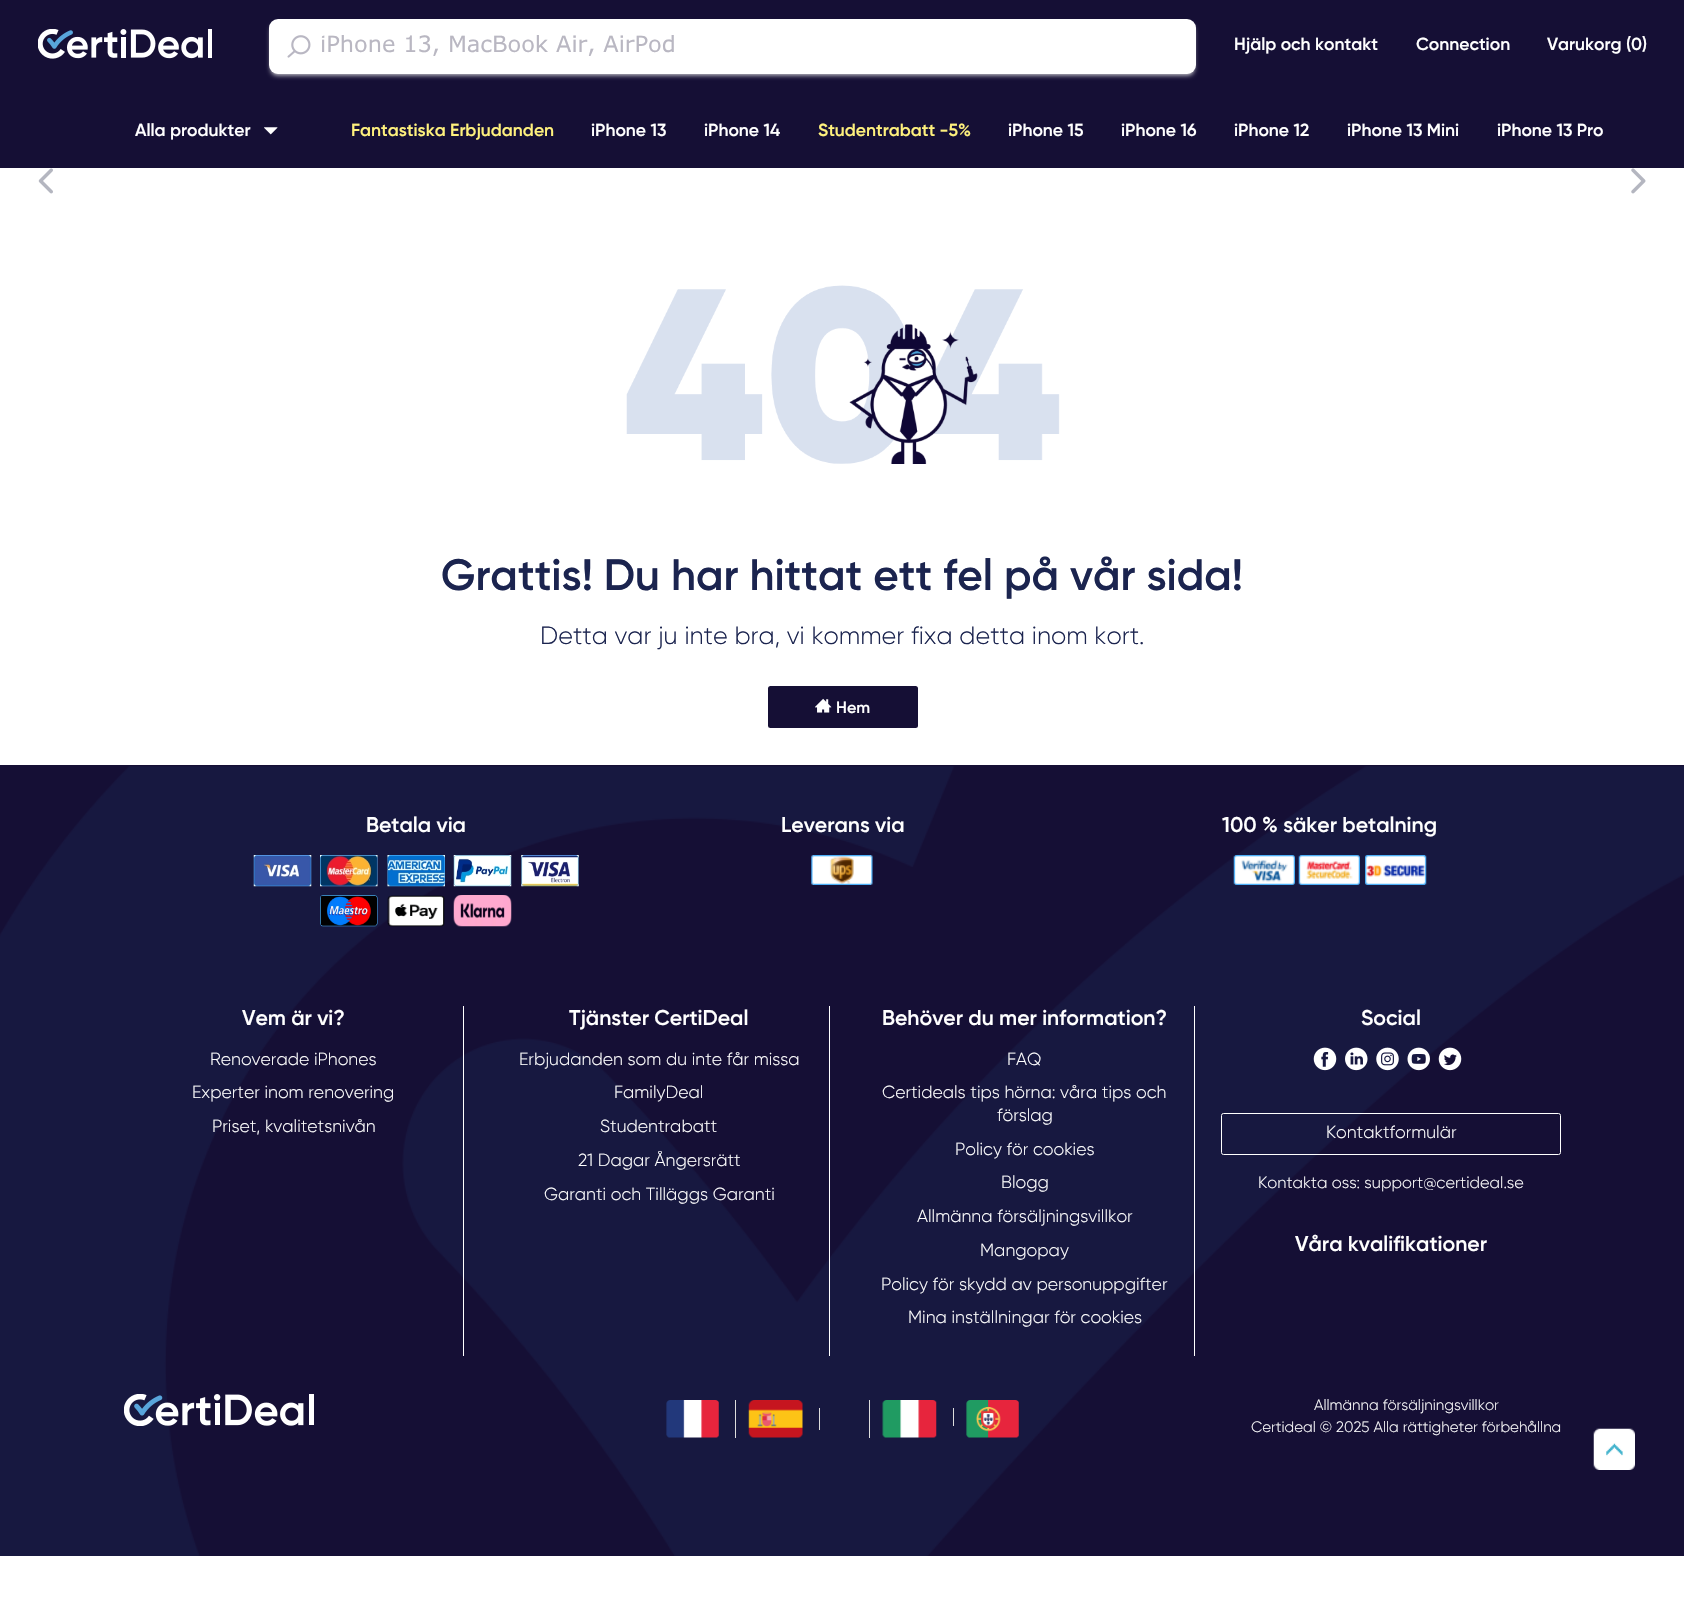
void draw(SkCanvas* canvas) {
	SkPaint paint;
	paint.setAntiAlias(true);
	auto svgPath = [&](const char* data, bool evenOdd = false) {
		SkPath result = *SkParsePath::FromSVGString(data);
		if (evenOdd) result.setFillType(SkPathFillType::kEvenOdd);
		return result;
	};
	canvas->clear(0xffffffff);
	paint.setColor(0xff150f35);
	canvas->drawRect(SkRect::MakeXYWH(0, 0, 1684, 168), paint);
	canvas->drawImageRect(SkImages::DeferredFromEncodedData(SkData::MakeFromFileName("img1.png")), SkRect::MakeXYWH(38, 29, 174, 30), SkSamplingOptions());
	paint.setColor(0xffe4e4e4);
	paint.setMaskFilter(SkMaskFilter::MakeBlur(kNormal_SkBlurStyle, 2.5));
	canvas->drawRoundRect(SkRect::MakeXYWH(271, 25, 923, 50), 6, 6, paint);
	paint.setMaskFilter(nullptr);
	paint.setColor(0xffffffff);
	canvas->drawRoundRect(SkRect::MakeXYWH(269, 19, 927, 55), 9, 9, paint);
	canvas->drawImageRect(SkImages::DeferredFromEncodedData(SkData::MakeFromFileName("img2.png")), SkRect::MakeXYWH(287, 35, 24, 23), SkSamplingOptions());
	canvas->save();
	canvas->clipPath(svgPath("M326 35H1210C1213.5 35 1216 37.5 1216 41V52C1216 55.5 1213.5 58 1210 58H326C322.5 58 320 55.5 320 52V41C320 37.5 322.5 35 326 35Z"), true);
	SkFont f1(fontMgr->matchFamilyStyle("Verdana", SkFontStyle::Normal()), 22.5);
	f1.setSubpixel(true);
	paint.setColor(0xffb9b7c2);
	canvas->drawString("iPhone 13, MacBook Air, AirPod", 320, 52, f1, paint);
	canvas->restore();
	SkFont f2(fontMgr->matchFamilyStyle("Gilroy", SkFontStyle(600, SkFontStyle::kNormal_Width, SkFontStyle::kUpright_Slant)), 17.5);
	f2.setSubpixel(true);
	paint.setColor(0xffffffff);
	canvas->drawString("Hjälp och kontakt", 1234, 50, f2, paint);
	canvas->drawString("Connection", 1416, 50, f2, paint);
	canvas->drawString("Varukorg (0)", 1547, 50, f2, paint);
	canvas->drawString("Alla produkter", 135, 136, f2, paint);
	canvas->drawImageRect(SkImages::DeferredFromEncodedData(SkData::MakeFromFileName("img3.png")), SkRect::MakeXYWH(264, 127, 14, 8), SkSamplingOptions());
	paint.setColor(0xfffff17d);
	canvas->drawString("Fantastiska Erbjudanden", 351, 136, f2, paint);
	paint.setColor(0xffffffff);
	canvas->drawString("iPhone 13", 591, 136, f2, paint);
	canvas->drawString("iPhone 14", 704, 136, f2, paint);
	paint.setColor(0xfffff17d);
	canvas->drawString("Studentrabatt -5%", 818, 136, f2, paint);
	paint.setColor(0xffffffff);
	canvas->drawString("iPhone 15", 1008, 136, f2, paint);
	canvas->drawString("iPhone 16", 1121, 136, f2, paint);
	canvas->drawString("iPhone 12", 1234, 136, f2, paint);
	canvas->drawString("iPhone 13 Mini", 1347, 136, f2, paint);
	canvas->drawString("iPhone 13 Pro", 1497, 136, f2, paint);
	canvas->drawImageRect(SkImages::DeferredFromEncodedData(SkData::MakeFromFileName("img4.png")), SkRect::MakeXYWH(38, 168, 15, 26), SkSamplingOptions());
	canvas->drawImageRect(SkImages::DeferredFromEncodedData(SkData::MakeFromFileName("img5.png")), SkRect::MakeXYWH(1631, 168, 15, 26), SkSamplingOptions());
	canvas->drawImageRect(SkImages::DeferredFromEncodedData(SkData::MakeFromFileName("img6.png")), SkRect::MakeXYWH(626, 285, 434, 179), SkSamplingOptions());
	SkFont f3(fontMgr->matchFamilyStyle("Gilroy", SkFontStyle(600, SkFontStyle::kNormal_Width, SkFontStyle::kUpright_Slant)), 43.75);
	f3.setSubpixel(true);
	paint.setColor(0xff1b244f);
	canvas->drawString("Grattis! Du har hittat ett fel på vår sida!", 441, 590, f3, paint);
	SkFont f4(fontMgr->matchFamilyStyle("Gilroy", SkFontStyle(300, SkFontStyle::kNormal_Width, SkFontStyle::kUpright_Slant)), 25);
	f4.setSubpixel(true);
	canvas->drawString("Detta var ju inte bra, vi kommer fixa detta inom kort.", 540, 644, f4, paint);
	paint.setColor(0xff150f35);
	canvas->drawRoundRect(SkRect::MakeXYWH(768, 686, 150, 42), 2.5, 2.5, paint);
	canvas->drawImageRect(SkImages::DeferredFromEncodedData(SkData::MakeFromFileName("img7.png")), SkRect::MakeXYWH(815, 698, 17, 15), SkSamplingOptions());
	SkFont f5(fontMgr->matchFamilyStyle("Gilroy", SkFontStyle(600, SkFontStyle::kNormal_Width, SkFontStyle::kUpright_Slant)), 16.25);
	f5.setSubpixel(true);
	paint.setColor(0xffffffff);
	canvas->drawString("Hem", 836, 713, f5, paint);
	paint.setColor(0xff150f35);
	canvas->drawRect(SkRect::MakeXYWH(0, 765, 1684, 791), paint);
	canvas->drawImageRect(SkImages::DeferredFromEncodedData(SkData::MakeFromFileName("img8.png")), SkRect::MakeXYWH(0, 766, 1684, 790), SkSamplingOptions());
	SkFont f6(fontMgr->matchFamilyStyle("Gilroy", SkFontStyle(600, SkFontStyle::kNormal_Width, SkFontStyle::kUpright_Slant)), 21.25);
	f6.setSubpixel(true);
	paint.setColor(0xffffffff);
	canvas->drawString("Betala via", 366, 832, f6, paint);
	canvas->drawImageRect(SkImages::DeferredFromEncodedData(SkData::MakeFromFileName("img9.png")), SkRect::MakeXYWH(253, 855, 59, 32), SkSamplingOptions());
	canvas->drawImageRect(SkImages::DeferredFromEncodedData(SkData::MakeFromFileName("img10.png")), SkRect::MakeXYWH(320, 855, 58, 32), SkSamplingOptions());
	canvas->drawImageRect(SkImages::DeferredFromEncodedData(SkData::MakeFromFileName("img11.png")), SkRect::MakeXYWH(387, 855, 58, 32), SkSamplingOptions());
	canvas->drawImageRect(SkImages::DeferredFromEncodedData(SkData::MakeFromFileName("img12.png")), SkRect::MakeXYWH(453, 855, 59, 32), SkSamplingOptions());
	canvas->drawImageRect(SkImages::DeferredFromEncodedData(SkData::MakeFromFileName("img13.png")), SkRect::MakeXYWH(521, 855, 58, 32), SkSamplingOptions());
	canvas->drawImageRect(SkImages::DeferredFromEncodedData(SkData::MakeFromFileName("img14.png")), SkRect::MakeXYWH(320, 895, 58, 32), SkSamplingOptions());
	canvas->drawImageRect(SkImages::DeferredFromEncodedData(SkData::MakeFromFileName("img15.png")), SkRect::MakeXYWH(387, 895, 58, 32), SkSamplingOptions());
	canvas->drawImageRect(SkImages::DeferredFromEncodedData(SkData::MakeFromFileName("img16.png")), SkRect::MakeXYWH(453, 895, 59, 32), SkSamplingOptions());
	canvas->drawString("Leverans via", 781, 832, f6, paint);
	canvas->drawImageRect(SkImages::DeferredFromEncodedData(SkData::MakeFromFileName("img17.png")), SkRect::MakeXYWH(811, 855, 62, 30), SkSamplingOptions());
	canvas->drawString("100 % säker betalning", 1222, 832, f6, paint);
	canvas->drawImageRect(SkImages::DeferredFromEncodedData(SkData::MakeFromFileName("img18.png")), SkRect::MakeXYWH(1233, 855, 62, 30), SkSamplingOptions());
	canvas->drawImageRect(SkImages::DeferredFromEncodedData(SkData::MakeFromFileName("img19.png")), SkRect::MakeXYWH(1298, 855, 62, 30), SkSamplingOptions());
	canvas->drawImageRect(SkImages::DeferredFromEncodedData(SkData::MakeFromFileName("img20.png")), SkRect::MakeXYWH(1365, 855, 62, 30), SkSamplingOptions());
	canvas->drawRect(SkRect::MakeXYWH(463, 1006, 1, 350), paint);
	canvas->drawString("Vem är vi?", 242, 1025, f6, paint);
	SkFont f7(fontMgr->matchFamilyStyle("Gilroy", SkFontStyle(300, SkFontStyle::kNormal_Width, SkFontStyle::kUpright_Slant)), 17.5);
	f7.setSubpixel(true);
	canvas->drawString("Renoverade iPhones", 210, 1065, f7, paint);
	canvas->drawString("Experter inom renovering", 192, 1098, f7, paint);
	canvas->drawString("Priset, kvalitetsnivån", 212, 1132, f7, paint);
	canvas->drawRect(SkRect::MakeXYWH(829, 1006, 1, 350), paint);
	canvas->drawString("Tjänster CertiDeal", 569, 1025, f6, paint);
	canvas->drawString("Erbjudanden som du inte får missa", 519, 1065, f7, paint);
	canvas->drawString("FamilyDeal", 614, 1098, f7, paint);
	canvas->drawString("Studentrabatt", 600, 1132, f7, paint);
	canvas->drawString("21 Dagar Ångersrätt", 578, 1166, f7, paint);
	canvas->drawString("Garanti och Tilläggs Garanti", 544, 1200, f7, paint);
	canvas->drawRect(SkRect::MakeXYWH(1194, 1006, 1, 350), paint);
	canvas->drawString("Behöver du mer information?", 882, 1025, f6, paint);
	canvas->drawString("FAQ", 1007, 1065, f7, paint);
	canvas->drawString("Certideals tips hörna: våra tips och", 882, 1098, f7, paint);
	canvas->drawString("förslag", 997, 1121, f7, paint);
	canvas->drawString("Policy för cookies", 955, 1155, f7, paint);
	canvas->drawString("Blogg", 1001, 1188, f7, paint);
	canvas->drawString("Allmänna försäljningsvillkor", 917, 1222, f7, paint);
	canvas->drawString("Mangopay", 980, 1256, f7, paint);
	canvas->drawString("Policy för skydd av personuppgifter", 881, 1290, f7, paint);
	canvas->drawString("Mina inställningar för cookies", 908, 1323, f7, paint);
	canvas->drawString("Social", 1361, 1025, f6, paint);
	canvas->drawImageRect(SkImages::DeferredFromEncodedData(SkData::MakeFromFileName("img21.png")), SkRect::MakeXYWH(1313, 1047, 24, 24), SkSamplingOptions());
	canvas->drawImageRect(SkImages::DeferredFromEncodedData(SkData::MakeFromFileName("img22.png")), SkRect::MakeXYWH(1345, 1047, 23, 24), SkSamplingOptions());
	canvas->drawImageRect(SkImages::DeferredFromEncodedData(SkData::MakeFromFileName("img23.png")), SkRect::MakeXYWH(1376, 1047, 23, 24), SkSamplingOptions());
	canvas->drawImageRect(SkImages::DeferredFromEncodedData(SkData::MakeFromFileName("img24.png")), SkRect::MakeXYWH(1407, 1047, 23, 24), SkSamplingOptions());
	canvas->drawImageRect(SkImages::DeferredFromEncodedData(SkData::MakeFromFileName("img25.png")), SkRect::MakeXYWH(1438, 1047, 24, 24), SkSamplingOptions());
	paint.setStroke(true);
	paint.setStrokeWidth(1);
	canvas->drawRoundRect(SkRect::MakeXYWH(1221.5, 1113.5, 339, 41), 2, 2, paint);
	paint.setStroke(false);
	canvas->drawString("Kontaktformulär", 1326, 1138, f7, paint);
	SkFont f8(fontMgr->matchFamilyStyle("Gilroy", SkFontStyle(300, SkFontStyle::kNormal_Width, SkFontStyle::kUpright_Slant)), 16.25);
	f8.setSubpixel(true);
	canvas->drawString("Kontakta oss: support@certideal.se", 1258, 1188, f8, paint);
	canvas->drawString("Våra kvalifikationer", 1295, 1251, f6, paint);
	canvas->drawImageRect(SkImages::DeferredFromEncodedData(SkData::MakeFromFileName("img26.png")), SkRect::MakeXYWH(124, 1394, 190, 32), SkSamplingOptions());
	canvas->drawImageRect(SkImages::DeferredFromEncodedData(SkData::MakeFromFileName("img27.png")), SkRect::MakeXYWH(666, 1400, 53, 38), SkSamplingOptions());
	paint.setColor(0xffdddddd);
	canvas->drawRect(SkRect::MakeXYWH(735, 1400, 1, 38), paint);
	canvas->drawImageRect(SkImages::DeferredFromEncodedData(SkData::MakeFromFileName("img28.png")), SkRect::MakeXYWH(748, 1400, 55, 38), SkSamplingOptions());
	canvas->drawRect(SkRect::MakeXYWH(819, 1408, 1, 22), paint);
	canvas->drawRect(SkRect::MakeXYWH(869, 1400, 1, 38), paint);
	canvas->drawImageRect(SkImages::DeferredFromEncodedData(SkData::MakeFromFileName("img29.png")), SkRect::MakeXYWH(882, 1400, 55, 38), SkSamplingOptions());
	canvas->drawRect(SkRect::MakeXYWH(953, 1408, 1, 18), paint);
	canvas->drawImageRect(SkImages::DeferredFromEncodedData(SkData::MakeFromFileName("img30.png")), SkRect::MakeXYWH(966, 1400, 53, 38), SkSamplingOptions());
	SkFont f9(fontMgr->matchFamilyStyle("Gilroy", SkFontStyle(300, SkFontStyle::kNormal_Width, SkFontStyle::kUpright_Slant)), 15);
	f9.setSubpixel(true);
	paint.setColor(0xffffffff);
	canvas->drawString("Allmänna försäljningsvillkor", 1314, 1410, f9, paint);
	canvas->drawString("Certideal © 2025 Alla rättigheter förbehållna", 1251, 1432, f9, paint);
	canvas->drawImageRect(SkImages::DeferredFromEncodedData(SkData::MakeFromFileName("img31.png")), SkRect::MakeXYWH(1593, 1428, 42, 42), SkSamplingOptions());
}
